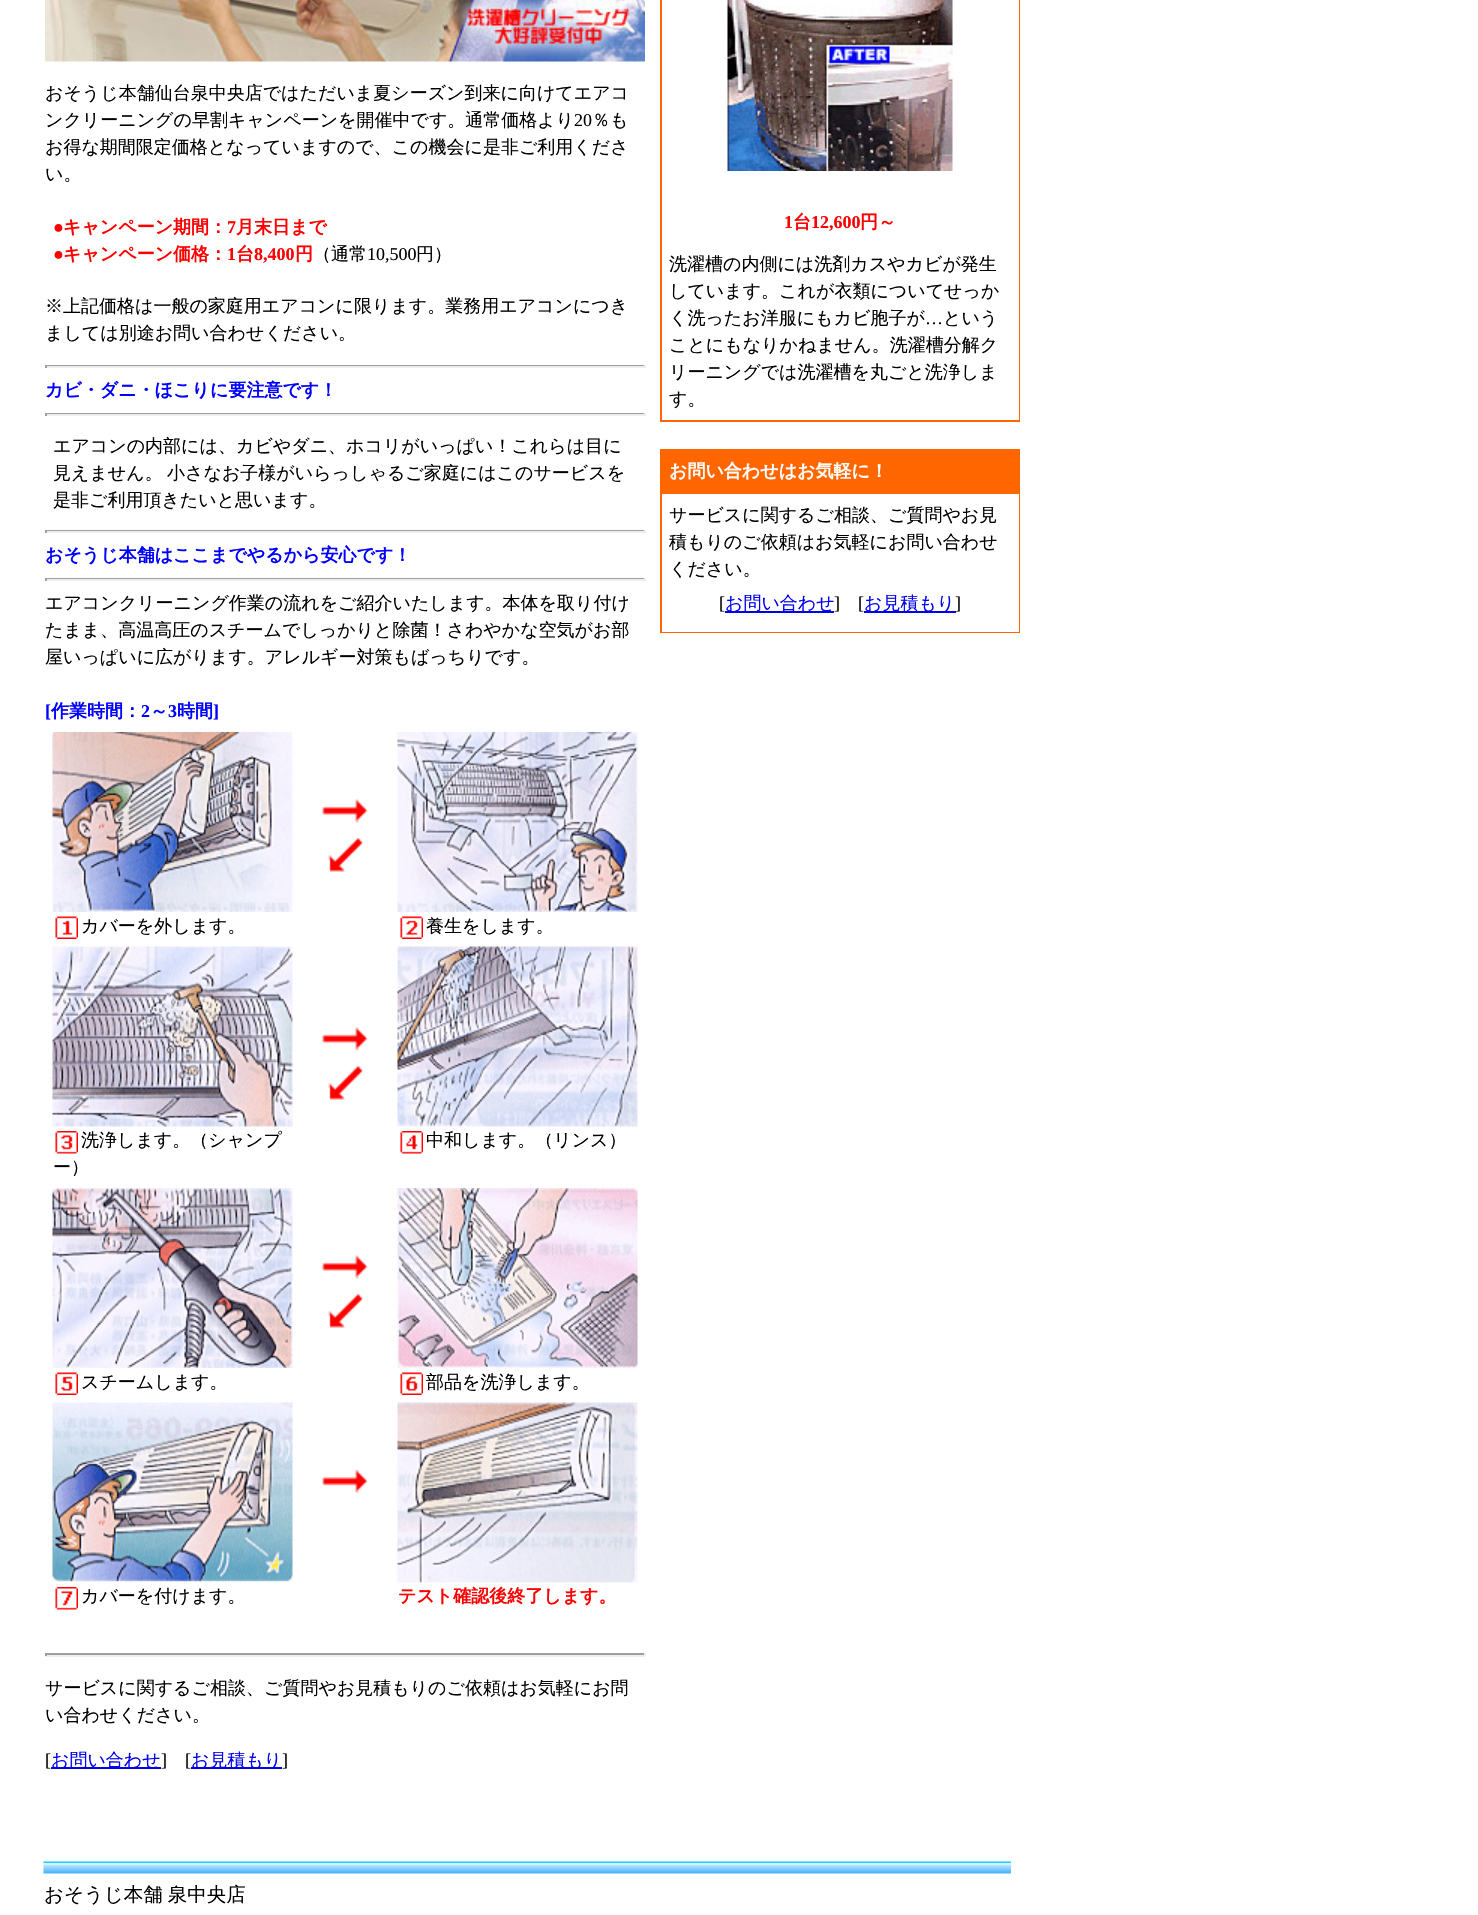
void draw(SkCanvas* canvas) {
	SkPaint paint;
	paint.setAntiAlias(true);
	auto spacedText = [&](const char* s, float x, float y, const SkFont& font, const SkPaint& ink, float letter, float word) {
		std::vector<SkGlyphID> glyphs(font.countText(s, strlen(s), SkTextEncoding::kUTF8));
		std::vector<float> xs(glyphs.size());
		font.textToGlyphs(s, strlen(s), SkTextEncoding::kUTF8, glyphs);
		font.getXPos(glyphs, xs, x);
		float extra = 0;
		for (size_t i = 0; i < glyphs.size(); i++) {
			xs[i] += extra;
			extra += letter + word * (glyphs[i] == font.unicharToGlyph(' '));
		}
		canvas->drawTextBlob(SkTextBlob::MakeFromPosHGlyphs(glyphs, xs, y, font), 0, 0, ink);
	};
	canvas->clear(0xffffffff);
	canvas->drawImageRect(SkImages::DeferredFromEncodedData(SkData::MakeFromFileName("img1.png")), SkRect::MakeXYWH(45, 0, 600, 62), SkSamplingOptions());
	SkFont f1(fontMgr->matchFamilyStyle("WenQuanYi Zen Hei", SkFontStyle(500, SkFontStyle::kNormal_Width, SkFontStyle::kUpright_Slant)), 18);
	f1.setSubpixel(true);
	paint.setColor(0xff000000);
	canvas->drawString("おそうじ本舗仙台泉中央店ではただいま夏シーズン到来に向けてエアコ", 45, 99, f1, paint);
	canvas->drawString("ンクリーニングの早割キャンペーンを開催中です。通常価格より", 45, 126, f1, paint);
	SkFont f2(fontMgr->matchFamilyStyle("Liberation Serif", SkFontStyle::Normal()), 18);
	f2.setSubpixel(true);
	canvas->drawString("20", 574, 126, f2, paint);
	canvas->drawString("％も", 592, 126, f1, paint);
	canvas->drawString("お得な期間限定価格となっていますので、この機会に是非ご利用くださ", 45, 153, f1, paint);
	canvas->drawString("い。", 45, 180, f1, paint);
	SkFont f3(fontMgr->matchFamilyStyle("Liberation Serif", SkFontStyle::Bold()), 18);
	f3.setSubpixel(true);
	paint.setColor(0xffff0000);
	canvas->drawString("●", 53, 233, f3, paint);
	SkFont f4(fontMgr->matchFamilyStyle("WenQuanYi Zen Hei", SkFontStyle::Bold()), 18);
	f4.setSubpixel(true);
	canvas->drawString("キャンペーン期間：", 63, 233, f4, paint);
	canvas->drawString("7", 227, 233, f3, paint);
	canvas->drawString("月末日まで", 236, 233, f4, paint);
	canvas->drawString("●", 53, 260, f3, paint);
	canvas->drawString("キャンペーン価格：", 63, 260, f4, paint);
	canvas->drawString("1", 227, 260, f3, paint);
	canvas->drawString("台", 236, 260, f4, paint);
	canvas->drawString("8,400", 254, 260, f3, paint);
	canvas->drawString("円", 295, 260, f4, paint);
	paint.setColor(0xff000000);
	canvas->drawString("（通常", 313, 260, f1, paint);
	canvas->drawString("10,500", 367, 260, f2, paint);
	canvas->drawString("円）", 416, 260, f1, paint);
	canvas->drawString("※上記価格は一般の家庭用エアコンに限ります。業務用エアコンにつき", 45, 312, f1, paint);
	canvas->drawString("ましては別途お問い合わせください。", 45, 339, f1, paint);
	paint.setColor(0xff9f9f9f);
	canvas->drawRect(SkRect::MakeXYWH(45, 365, 600, 1), paint);
	paint.setColor(0xffeeeeee);
	canvas->drawRect(SkRect::MakeXYWH(644, 365, 2, 3), paint);
	canvas->drawRect(SkRect::MakeXYWH(45, 366, 600, 2), paint);
	paint.setColor(0xff9f9f9f);
	canvas->drawRect(SkRect::MakeXYWH(45, 365, 2, 3), paint);
	paint.setColor(0xff0000ff);
	canvas->drawString("カビ・ダニ・ほこりに要注意です！", 45, 396, f4, paint);
	paint.setColor(0xff9f9f9f);
	canvas->drawRect(SkRect::MakeXYWH(45, 413, 600, 1), paint);
	paint.setColor(0xffeeeeee);
	canvas->drawRect(SkRect::MakeXYWH(644, 413, 2, 3), paint);
	canvas->drawRect(SkRect::MakeXYWH(45, 414, 600, 2), paint);
	paint.setColor(0xff9f9f9f);
	canvas->drawRect(SkRect::MakeXYWH(45, 413, 2, 3), paint);
	paint.setColor(0xff000000);
	canvas->drawString("エアコンの内部には、カビやダニ、ホコリがいっぱい！これらは目に", 53, 452, f1, paint);
	spacedText("見えません。 小さなお子様がいらっしゃるご家庭にはこのサービスを", 53, 479, f1, paint, 0, -1);
	canvas->drawString("是非ご利用頂きたいと思います。", 53, 506, f1, paint);
	paint.setColor(0xff9f9f9f);
	canvas->drawRect(SkRect::MakeXYWH(45, 530, 600, 1), paint);
	paint.setColor(0xffeeeeee);
	canvas->drawRect(SkRect::MakeXYWH(644, 530, 2, 3), paint);
	canvas->drawRect(SkRect::MakeXYWH(45, 531, 600, 2), paint);
	paint.setColor(0xff9f9f9f);
	canvas->drawRect(SkRect::MakeXYWH(45, 530, 2, 3), paint);
	paint.setColor(0xff0000ff);
	canvas->drawString("おそうじ本舗はここまでやるから安心です！", 45, 561, f4, paint);
	paint.setColor(0xff9f9f9f);
	canvas->drawRect(SkRect::MakeXYWH(45, 578, 600, 1), paint);
	paint.setColor(0xffeeeeee);
	canvas->drawRect(SkRect::MakeXYWH(644, 578, 2, 3), paint);
	canvas->drawRect(SkRect::MakeXYWH(45, 579, 600, 2), paint);
	paint.setColor(0xff9f9f9f);
	canvas->drawRect(SkRect::MakeXYWH(45, 578, 2, 3), paint);
	paint.setColor(0xff000000);
	canvas->drawString("エアコンクリーニング作業の流れをご紹介いたします。本体を取り付け", 45, 609, f1, paint);
	canvas->drawString("たまま、高温高圧のスチームでしっかりと除菌！さわやかな空気がお部", 45, 636, f1, paint);
	canvas->drawString("屋いっぱいに広がります。アレルギー対策もばっちりです。", 45, 663, f1, paint);
	paint.setColor(0xff0000ff);
	canvas->drawString("[", 45, 717, f3, paint);
	canvas->drawString("作業時間：", 51, 717, f4, paint);
	canvas->drawString("2", 141, 717, f3, paint);
	canvas->drawString("～", 150, 717, f4, paint);
	canvas->drawString("3", 168, 717, f3, paint);
	canvas->drawString("時間", 177, 717, f4, paint);
	canvas->drawString("]", 213, 717, f3, paint);
	canvas->drawImageRect(SkImages::DeferredFromEncodedData(SkData::MakeFromFileName("img2.png")), SkRect::MakeXYWH(322, 799, 46, 73), SkSamplingOptions());
	canvas->drawImageRect(SkImages::DeferredFromEncodedData(SkData::MakeFromFileName("img3.png")), SkRect::MakeXYWH(52, 732, 241, 180), SkSamplingOptions());
	canvas->drawImageRect(SkImages::DeferredFromEncodedData(SkData::MakeFromFileName("img4.png")), SkRect::MakeXYWH(55, 916, 23, 23), SkSamplingOptions());
	paint.setColor(0xff000000);
	canvas->drawString("カバーを外します。", 81, 932, f1, paint);
	canvas->drawImageRect(SkImages::DeferredFromEncodedData(SkData::MakeFromFileName("img5.png")), SkRect::MakeXYWH(397, 732, 241, 180), SkSamplingOptions());
	canvas->drawImageRect(SkImages::DeferredFromEncodedData(SkData::MakeFromFileName("img6.png")), SkRect::MakeXYWH(400, 916, 23, 23), SkSamplingOptions());
	canvas->drawString("養生をします。", 426, 932, f1, paint);
	canvas->drawImageRect(SkImages::DeferredFromEncodedData(SkData::MakeFromFileName("img2.png")), SkRect::MakeXYWH(322, 1027, 46, 73), SkSamplingOptions());
	canvas->drawImageRect(SkImages::DeferredFromEncodedData(SkData::MakeFromFileName("img7.png")), SkRect::MakeXYWH(52, 946, 241, 181), SkSamplingOptions());
	canvas->drawImageRect(SkImages::DeferredFromEncodedData(SkData::MakeFromFileName("img8.png")), SkRect::MakeXYWH(55, 1131, 23, 23), SkSamplingOptions());
	canvas->drawString("洗浄します。（シャンプ", 81, 1146, f1, paint);
	canvas->drawString("ー）", 53, 1173, f1, paint);
	canvas->drawImageRect(SkImages::DeferredFromEncodedData(SkData::MakeFromFileName("img9.png")), SkRect::MakeXYWH(397, 946, 241, 181), SkSamplingOptions());
	canvas->drawImageRect(SkImages::DeferredFromEncodedData(SkData::MakeFromFileName("img10.png")), SkRect::MakeXYWH(400, 1131, 23, 23), SkSamplingOptions());
	canvas->drawString("中和します。（リンス）", 426, 1146, f1, paint);
	canvas->drawImageRect(SkImages::DeferredFromEncodedData(SkData::MakeFromFileName("img2.png")), SkRect::MakeXYWH(322, 1255, 46, 73), SkSamplingOptions());
	canvas->drawImageRect(SkImages::DeferredFromEncodedData(SkData::MakeFromFileName("img11.png")), SkRect::MakeXYWH(52, 1188, 241, 180), SkSamplingOptions());
	canvas->drawImageRect(SkImages::DeferredFromEncodedData(SkData::MakeFromFileName("img12.png")), SkRect::MakeXYWH(55, 1372, 23, 23), SkSamplingOptions());
	canvas->drawString("スチームします。", 81, 1388, f1, paint);
	canvas->drawImageRect(SkImages::DeferredFromEncodedData(SkData::MakeFromFileName("img13.png")), SkRect::MakeXYWH(397, 1188, 241, 180), SkSamplingOptions());
	canvas->drawImageRect(SkImages::DeferredFromEncodedData(SkData::MakeFromFileName("img14.png")), SkRect::MakeXYWH(400, 1372, 23, 23), SkSamplingOptions());
	canvas->drawString("部品を洗浄します。", 426, 1388, f1, paint);
	canvas->drawImageRect(SkImages::DeferredFromEncodedData(SkData::MakeFromFileName("img15.png")), SkRect::MakeXYWH(322, 1469, 46, 24), SkSamplingOptions());
	canvas->drawImageRect(SkImages::DeferredFromEncodedData(SkData::MakeFromFileName("img16.png")), SkRect::MakeXYWH(52, 1402, 241, 180), SkSamplingOptions());
	canvas->drawImageRect(SkImages::DeferredFromEncodedData(SkData::MakeFromFileName("img17.png")), SkRect::MakeXYWH(55, 1587, 23, 23), SkSamplingOptions());
	canvas->drawString("カバーを付けます。", 81, 1602, f1, paint);
	canvas->drawImageRect(SkImages::DeferredFromEncodedData(SkData::MakeFromFileName("img18.png")), SkRect::MakeXYWH(397, 1402, 241, 181), SkSamplingOptions());
	paint.setColor(0xffff0000);
	canvas->drawString("テスト確認後終了します。", 398, 1602, f4, paint);
	paint.setColor(0xff9f9f9f);
	canvas->drawRect(SkRect::MakeXYWH(45, 1653, 600, 2), paint);
	paint.setColor(0xffeeeeee);
	canvas->drawRect(SkRect::MakeXYWH(644, 1653, 2, 3), paint);
	canvas->drawRect(SkRect::MakeXYWH(45, 1655, 600, 2), paint);
	paint.setColor(0xff9f9f9f);
	canvas->drawRect(SkRect::MakeXYWH(45, 1653, 2, 3), paint);
	paint.setColor(0xff000000);
	canvas->drawString("サービスに関するご相談、ご質問やお見積もりのご依頼はお気軽にお問", 45, 1694, f1, paint);
	canvas->drawString("い合わせください。", 45, 1721, f1, paint);
	canvas->drawString("[", 45, 1766, f2, paint);
	paint.setColor(0xff0000ee);
	canvas->drawRect(SkRect::MakeXYWH(51, 1767, 110, 2), paint);
	canvas->drawString("お問い合わせ", 51, 1766, f1, paint);
	paint.setColor(0xff000000);
	canvas->drawString("]", 161, 1766, f2, paint);
	canvas->drawString("[", 185, 1766, f2, paint);
	paint.setColor(0xff0000ee);
	canvas->drawRect(SkRect::MakeXYWH(191, 1767, 91, 2), paint);
	canvas->drawString("お見積もり", 191, 1766, f1, paint);
	paint.setColor(0xff000000);
	canvas->drawString("]", 282, 1766, f2, paint);
	paint.setColor(0xffff6600);
	canvas->drawRect(SkRect::MakeXYWH(660, 0, 360, 422), paint);
	paint.setColor(0xffffffff);
	canvas->drawRect(SkRect::MakeXYWH(662, 0, 357, 420), paint);
	canvas->drawImageRect(SkImages::DeferredFromEncodedData(SkData::MakeFromFileName("img19.png")), SkRect::MakeXYWH(727, 0, 226, 171), SkSamplingOptions());
	paint.setColor(0xffff0000);
	canvas->drawString("1", 784, 228, f3, paint);
	canvas->drawString("台", 793, 228, f4, paint);
	canvas->drawString("12,600", 811, 228, f3, paint);
	canvas->drawString("円～", 860, 228, f4, paint);
	paint.setColor(0xff000000);
	canvas->drawString("洗濯槽の内側には洗剤カスやカビが発生", 669, 270, f1, paint);
	canvas->drawString("しています。これが衣類についてせっか", 669, 297, f1, paint);
	canvas->drawString("く洗ったお洋服にもカビ胞子が", 669, 324, f1, paint);
	canvas->drawString("…", 925, 324, f2, paint);
	canvas->drawString("という", 943, 324, f1, paint);
	canvas->drawString("ことにもなりかねません。洗濯槽分解ク", 669, 351, f1, paint);
	canvas->drawString("リーニングでは洗濯槽を丸ごと洗浄しま", 669, 378, f1, paint);
	canvas->drawString("す。", 669, 405, f1, paint);
	paint.setColor(0xffff6600);
	canvas->drawRect(SkRect::MakeXYWH(660, 449, 360, 184), paint);
	paint.setColor(0xffffffff);
	canvas->drawString("お問い合わせはお気軽に！", 669, 477, f4, paint);
	canvas->drawRect(SkRect::MakeXYWH(662, 494, 357, 138), paint);
	paint.setColor(0xff000000);
	canvas->drawString("サービスに関するご相談、ご質問やお見", 669, 521, f1, paint);
	canvas->drawString("積もりのご依頼はお気軽にお問い合わせ", 669, 548, f1, paint);
	canvas->drawString("ください。", 669, 575, f1, paint);
	canvas->drawString("[", 719, 609, f2, paint);
	paint.setColor(0xff0000ee);
	canvas->drawRect(SkRect::MakeXYWH(725, 611, 109, 2), paint);
	canvas->drawString("お問い合わせ", 725, 609, f1, paint);
	paint.setColor(0xff000000);
	canvas->drawString("]", 834, 609, f2, paint);
	canvas->drawString("[", 858, 609, f2, paint);
	paint.setColor(0xff0000ee);
	canvas->drawRect(SkRect::MakeXYWH(864, 611, 92, 2), paint);
	canvas->drawString("お見積もり", 864, 609, f1, paint);
	paint.setColor(0xff000000);
	canvas->drawString("]", 955, 609, f2, paint);
	canvas->drawImageRect(SkImages::DeferredFromEncodedData(SkData::MakeFromFileName("img20.png")), SkRect::MakeXYWH(43, 1861, 968, 13), SkSamplingOptions());
	SkFont f5(fontMgr->matchFamilyStyle("WenQuanYi Zen Hei", SkFontStyle(500, SkFontStyle::kNormal_Width, SkFontStyle::kUpright_Slant)), 19.5);
	f5.setSubpixel(true);
	spacedText("おそうじ本舗 泉中央店", 44, 1901, f5, paint, 0, -1);
}
